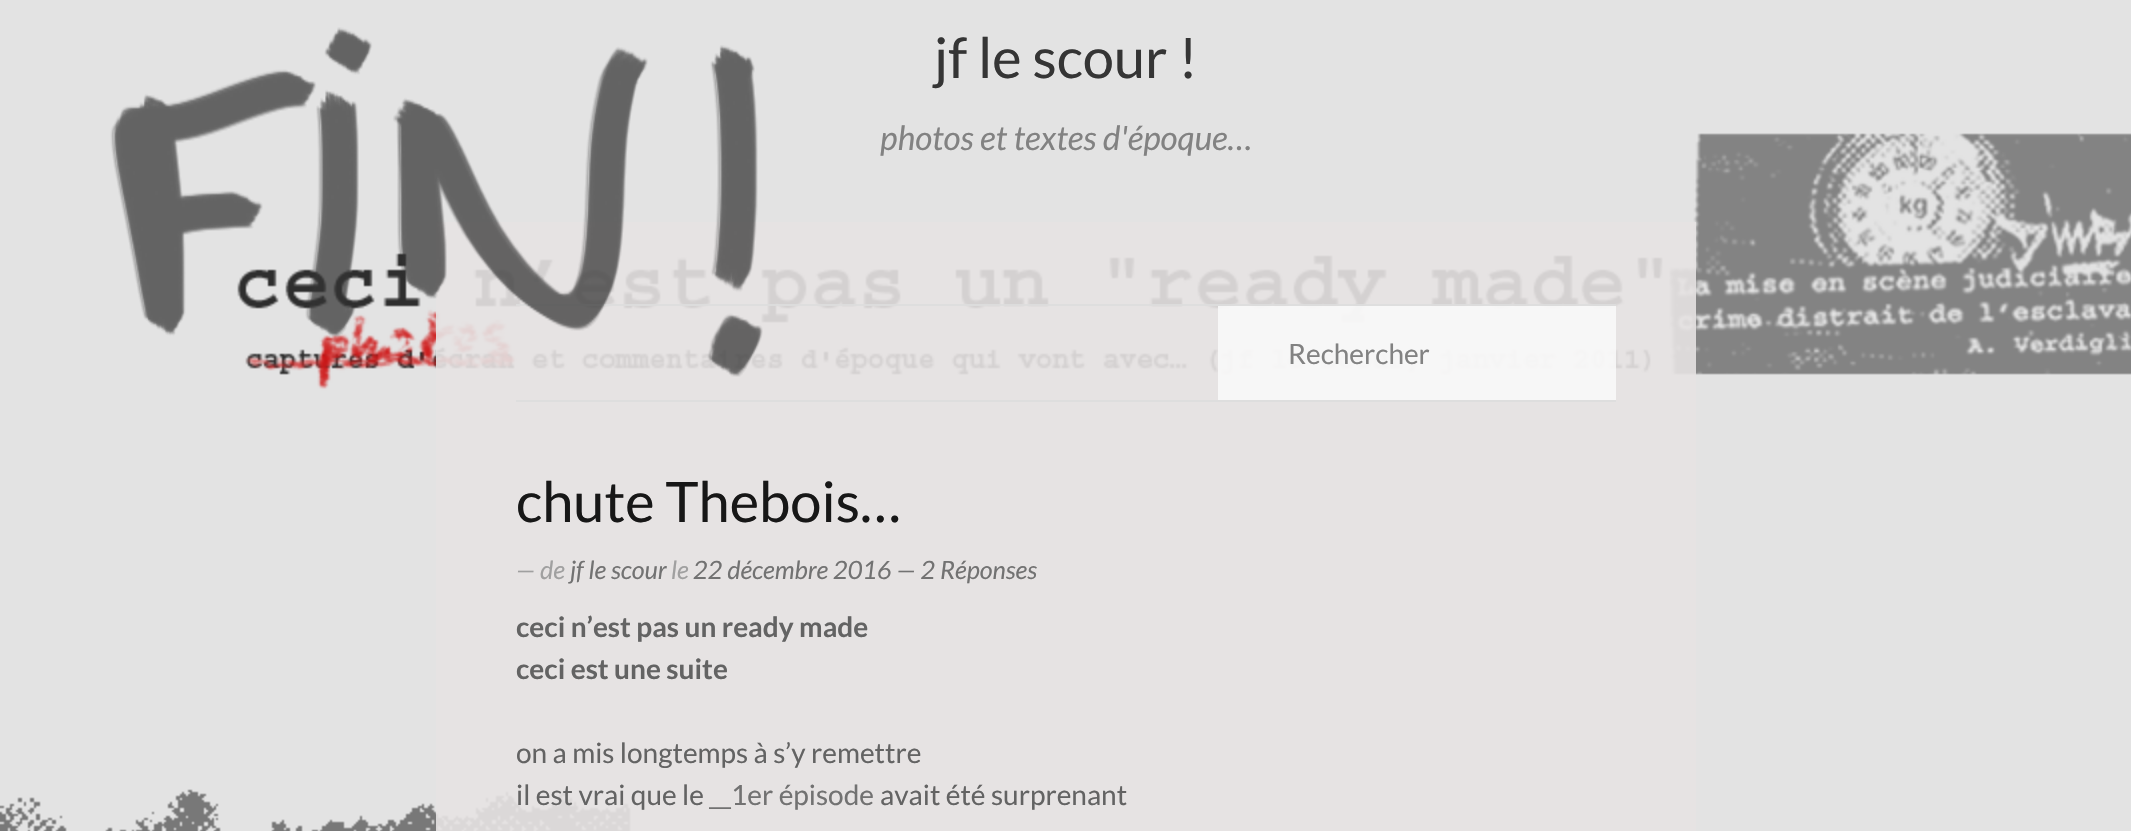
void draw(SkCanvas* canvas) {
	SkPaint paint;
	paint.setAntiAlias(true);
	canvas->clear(0xffe3e3e3);
	canvas->drawImageRect(SkImages::DeferredFromEncodedData(SkData::MakeFromFileName("img1.png")), SkRect::MakeXYWH(0, 133, 2131, 698), SkSamplingOptions());
	SkFont f1(fontMgr->matchFamilyStyle("Lato", SkFontStyle::Normal()), 56);
	f1.setSubpixel(true);
	paint.setColor(0xff353535);
	canvas->drawString("jf le scour !", 934, 78, f1, paint);
	SkFont f2(fontMgr->matchFamilyStyle("Lato", SkFontStyle::Italic()), 33.6);
	f2.setSubpixel(true);
	paint.setColor(0xff828282);
	canvas->drawString("photos et textes d'époque…", 880, 150, f2, paint);
	paint.setColor(0xe6e5e2e2);
	canvas->drawRect(SkRect::MakeXYWH(436, 222, 1260, 609), paint);
	paint.setColor(0xe6dddddd);
	canvas->drawRect(SkRect::MakeXYWH(516, 304, 1100, 2), paint);
	paint.setColor(0xffdedede);
	canvas->drawRect(SkRect::MakeXYWH(516, 400, 1100, 2), paint);
	paint.setColor(0xe6f8f8f8);
	canvas->drawRect(SkRect::MakeXYWH(1218, 306, 398, 94), paint);
	SkFont f3(fontMgr->matchFamilyStyle("Lato", SkFontStyle::Normal()), 28);
	f3.setSubpixel(true);
	paint.setColor(0xff828282);
	canvas->drawString("Rechercher", 1288, 364, f3, paint);
	paint.setColor(0xff171717);
	canvas->drawString("chute Thebois…", 516, 522, f1, paint);
	SkFont f4(fontMgr->matchFamilyStyle("Lato", SkFontStyle::Italic()), 25.25);
	f4.setSubpixel(true);
	paint.setColor(0xffa0a0a0);
	canvas->drawString("— de", 516, 579, f4, paint);
	paint.setColor(0xff727272);
	canvas->drawString("jf le scour", 570, 579, f4, paint);
	paint.setColor(0xffa0a0a0);
	canvas->drawString("le", 671, 579, f4, paint);
	paint.setColor(0xff727272);
	canvas->drawString("22 décembre 2016 — 2 Réponses", 693, 579, f4, paint);
	canvas->drawImageRect(SkImages::DeferredFromEncodedData(SkData::MakeFromFileName("img2.png")), SkRect::MakeXYWH(110, 27, 653, 350), SkSamplingOptions());
	SkFont f5(fontMgr->matchFamilyStyle("Lato", SkFontStyle::Bold()), 28);
	f5.setSubpixel(true);
	paint.setColor(0xff636363);
	canvas->drawString("ceci n’est pas un ready made", 516, 637, f5, paint);
	canvas->drawString("ceci est une suite", 516, 679, f5, paint);
	canvas->drawString("on a mis longtemps à s’y remettre", 516, 763, f3, paint);
	canvas->drawString("il est vrai que le", 516, 805, f3, paint);
	paint.setColor(0xff727272);
	canvas->drawString("__1er épisode", 709, 805, f3, paint);
	paint.setColor(0xff636363);
	canvas->drawString("avait été surprenant", 880, 805, f3, paint);
}
